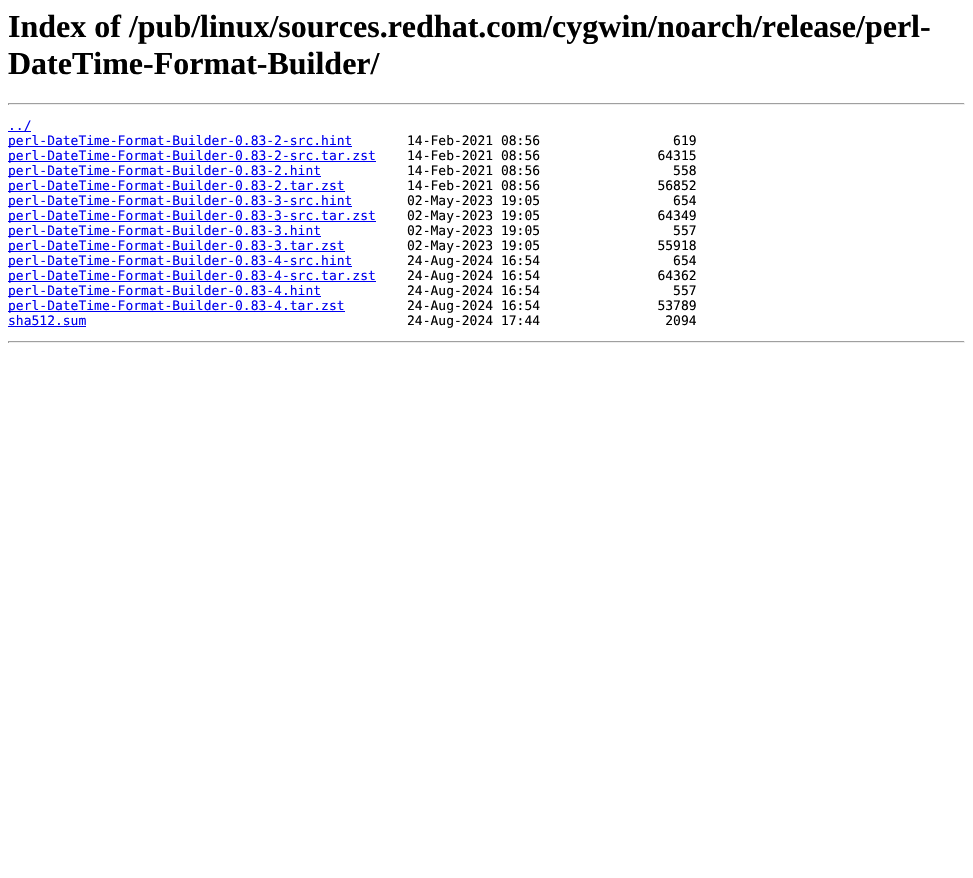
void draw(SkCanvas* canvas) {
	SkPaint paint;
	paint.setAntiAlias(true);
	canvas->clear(0xffffffff);
	SkFont f1(fontMgr->matchFamilyStyle("Liberation Serif", SkFontStyle::Bold()), 32);
	f1.setSubpixel(true);
	paint.setColor(0xff000000);
	canvas->drawString("Index of /pub/linux/sources.redhat.com/cygwin/noarch/release/perl-", 8, 37, f1, paint);
	canvas->drawString("DateTime-Format-Builder/", 8, 74, f1, paint);
	paint.setColor(0xff9f9f9f);
	canvas->drawRect(SkRect::MakeXYWH(8, 103, 957, 1), paint);
	paint.setColor(0xffeeeeee);
	canvas->drawRect(SkRect::MakeXYWH(964, 103, 1, 2), paint);
	canvas->drawRect(SkRect::MakeXYWH(8, 104, 957, 1), paint);
	paint.setColor(0xff9f9f9f);
	canvas->drawRect(SkRect::MakeXYWH(8, 103, 1, 2), paint);
	paint.setColor(0xff0000ee);
	canvas->drawRect(SkRect::MakeXYWH(8, 131, 23, 1), paint);
	SkFont f2(fontMgr->matchFamilyStyle("DejaVu Sans Mono", SkFontStyle::Normal()), 13);
	f2.setSubpixel(true);
	canvas->drawString("../", 8, 130, f2, paint);
	canvas->drawRect(SkRect::MakeXYWH(8, 146, 344, 1), paint);
	canvas->drawString("perl-DateTime-Format-Builder-0.83-2-src.hint", 8, 145, f2, paint);
	paint.setColor(0xff000000);
	canvas->drawString("14-Feb-2021 08:56                 619", 407, 145, f2, paint);
	paint.setColor(0xff0000ee);
	canvas->drawRect(SkRect::MakeXYWH(8, 161, 368, 1), paint);
	canvas->drawString("perl-DateTime-Format-Builder-0.83-2-src.tar.zst", 8, 160, f2, paint);
	paint.setColor(0xff000000);
	canvas->drawString("14-Feb-2021 08:56               64315", 407, 160, f2, paint);
	paint.setColor(0xff0000ee);
	canvas->drawRect(SkRect::MakeXYWH(8, 176, 313, 1), paint);
	canvas->drawString("perl-DateTime-Format-Builder-0.83-2.hint", 8, 175, f2, paint);
	paint.setColor(0xff000000);
	canvas->drawString("14-Feb-2021 08:56                 558", 407, 175, f2, paint);
	paint.setColor(0xff0000ee);
	canvas->drawRect(SkRect::MakeXYWH(8, 191, 337, 1), paint);
	canvas->drawString("perl-DateTime-Format-Builder-0.83-2.tar.zst", 8, 190, f2, paint);
	paint.setColor(0xff000000);
	canvas->drawString("14-Feb-2021 08:56               56852", 407, 190, f2, paint);
	paint.setColor(0xff0000ee);
	canvas->drawRect(SkRect::MakeXYWH(8, 206, 344, 1), paint);
	canvas->drawString("perl-DateTime-Format-Builder-0.83-3-src.hint", 8, 205, f2, paint);
	paint.setColor(0xff000000);
	canvas->drawString("02-May-2023 19:05                 654", 407, 205, f2, paint);
	paint.setColor(0xff0000ee);
	canvas->drawRect(SkRect::MakeXYWH(8, 221, 368, 1), paint);
	canvas->drawString("perl-DateTime-Format-Builder-0.83-3-src.tar.zst", 8, 220, f2, paint);
	paint.setColor(0xff000000);
	canvas->drawString("02-May-2023 19:05               64349", 407, 220, f2, paint);
	paint.setColor(0xff0000ee);
	canvas->drawRect(SkRect::MakeXYWH(8, 236, 313, 1), paint);
	canvas->drawString("perl-DateTime-Format-Builder-0.83-3.hint", 8, 235, f2, paint);
	paint.setColor(0xff000000);
	canvas->drawString("02-May-2023 19:05                 557", 407, 235, f2, paint);
	paint.setColor(0xff0000ee);
	canvas->drawRect(SkRect::MakeXYWH(8, 251, 337, 1), paint);
	canvas->drawString("perl-DateTime-Format-Builder-0.83-3.tar.zst", 8, 250, f2, paint);
	paint.setColor(0xff000000);
	canvas->drawString("02-May-2023 19:05               55918", 407, 250, f2, paint);
	paint.setColor(0xff0000ee);
	canvas->drawRect(SkRect::MakeXYWH(8, 266, 344, 1), paint);
	canvas->drawString("perl-DateTime-Format-Builder-0.83-4-src.hint", 8, 265, f2, paint);
	paint.setColor(0xff000000);
	canvas->drawString("24-Aug-2024 16:54                 654", 407, 265, f2, paint);
	paint.setColor(0xff0000ee);
	canvas->drawRect(SkRect::MakeXYWH(8, 281, 368, 1), paint);
	canvas->drawString("perl-DateTime-Format-Builder-0.83-4-src.tar.zst", 8, 280, f2, paint);
	paint.setColor(0xff000000);
	canvas->drawString("24-Aug-2024 16:54               64362", 407, 280, f2, paint);
	paint.setColor(0xff0000ee);
	canvas->drawRect(SkRect::MakeXYWH(8, 296, 313, 1), paint);
	canvas->drawString("perl-DateTime-Format-Builder-0.83-4.hint", 8, 295, f2, paint);
	paint.setColor(0xff000000);
	canvas->drawString("24-Aug-2024 16:54                 557", 407, 295, f2, paint);
	paint.setColor(0xff0000ee);
	canvas->drawRect(SkRect::MakeXYWH(8, 311, 337, 1), paint);
	canvas->drawString("perl-DateTime-Format-Builder-0.83-4.tar.zst", 8, 310, f2, paint);
	paint.setColor(0xff000000);
	canvas->drawString("24-Aug-2024 16:54               53789", 407, 310, f2, paint);
	paint.setColor(0xff0000ee);
	canvas->drawString("sha512.sum", 8, 325, f2, paint);
	canvas->drawRect(SkRect::MakeXYWH(8, 326, 78, 1), paint);
	paint.setColor(0xff000000);
	canvas->drawString("24-Aug-2024 17:44                2094", 407, 325, f2, paint);
	paint.setColor(0xff9f9f9f);
	canvas->drawRect(SkRect::MakeXYWH(8, 341, 957, 1), paint);
	paint.setColor(0xffeeeeee);
	canvas->drawRect(SkRect::MakeXYWH(964, 341, 1, 2), paint);
	canvas->drawRect(SkRect::MakeXYWH(8, 342, 957, 1), paint);
	paint.setColor(0xff9f9f9f);
	canvas->drawRect(SkRect::MakeXYWH(8, 341, 1, 2), paint);
}
